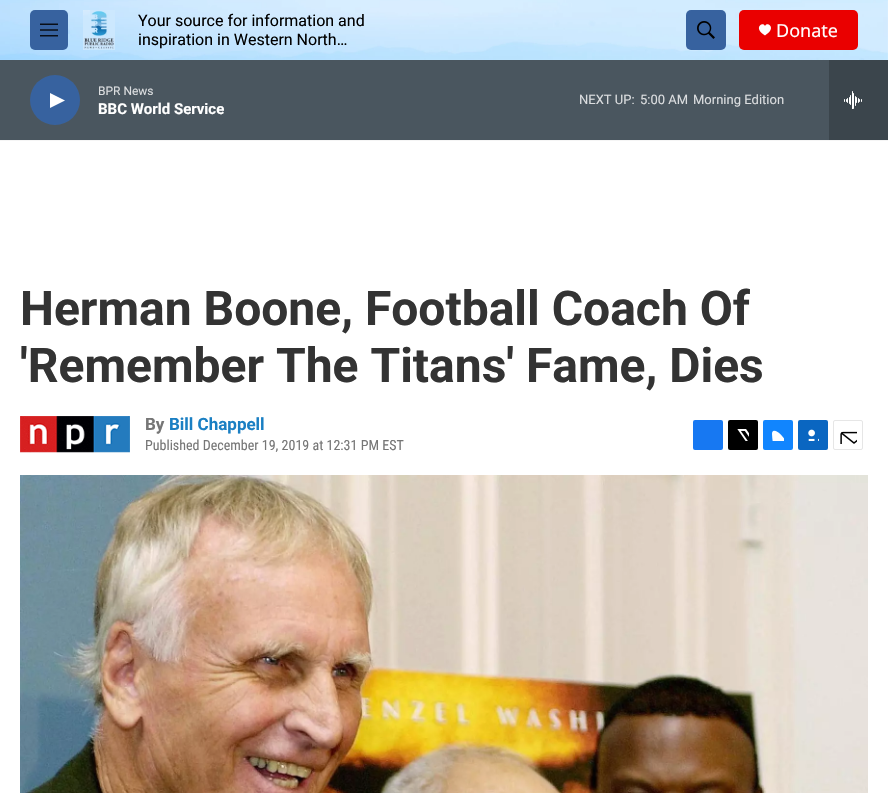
void draw(SkCanvas* canvas) {
	SkPaint paint;
	paint.setAntiAlias(true);
	auto svgPath = [&](const char* data, bool evenOdd = false) {
		SkPath result = *SkParsePath::FromSVGString(data);
		if (evenOdd) result.setFillType(SkPathFillType::kEvenOdd);
		return result;
	};
	canvas->clear(0xffffffff);
	paint.setColor(0xfff5f5f5);
	canvas->drawRect(SkRect::MakeXYWH(0, 140, 888, 1), paint);
	canvas->drawImageRect(SkImages::DeferredFromEncodedData(SkData::MakeFromFileName("img1.png")), SkRect::MakeXYWH(0, 0, 888, 60), SkSamplingOptions());
	paint.setColor(0xff37629f);
	canvas->drawRoundRect(SkRect::MakeXYWH(30, 10, 38, 40), 5, 5, paint);
	canvas->drawImageRect(SkImages::DeferredFromEncodedData(SkData::MakeFromFileName("img2.png")), SkRect::MakeXYWH(40, 23, 18, 14), SkSamplingOptions());
	canvas->drawImageRect(SkImages::DeferredFromEncodedData(SkData::MakeFromFileName("img3.png")), SkRect::MakeXYWH(83, 10, 32, 40), SkSamplingOptions());
	SkFont f1(fontMgr->matchFamilyStyle("Roboto", SkFontStyle::Normal()), 16);
	f1.setSubpixel(true);
	paint.setColor(0xff000000);
	canvas->drawString("Your source for information and", 138, 26, f1, paint);
	canvas->drawString("inspiration in Western North…", 138, 45, f1, paint);
	paint.setColor(0xff37629f);
	canvas->drawRoundRect(SkRect::MakeXYWH(686, 10, 40, 40), 5, 5, paint);
	canvas->drawImageRect(SkImages::DeferredFromEncodedData(SkData::MakeFromFileName("img4.png")), SkRect::MakeXYWH(697, 21, 18, 18), SkSamplingOptions());
	paint.setColor(0xffea0000);
	canvas->drawRoundRect(SkRect::MakeXYWH(739, 10, 119, 40), 5, 5, paint);
	paint.setColor(0xffffffff);
	canvas->drawPath(svgPath("M765 26C763 21 752.5 28 765 35.5C777.5 28 767 21 765 26Z"), paint);
	SkFont f2(fontMgr->matchFamilyStyle("Noto Sans", SkFontStyle::Normal()), 18);
	f2.setSubpixel(true);
	canvas->drawString("Donate", 776, 37, f2, paint);
	paint.setColor(0xff4a565f);
	canvas->drawRect(SkRect::MakeXYWH(0, 60, 829, 80), paint);
	paint.setColor(0xff37629f);
	canvas->drawCircle(55, 100, 25, paint);
	paint.setColor(0xffffffff);
	canvas->drawPath(svgPath("M50 93L65 100.5L50 108Z"), paint);
	SkFont f3(fontMgr->matchFamilyStyle("Roboto", SkFontStyle::Normal()), 12);
	f3.setSubpixel(true);
	paint.setColor(0xffdbdddf);
	canvas->drawString("BPR News", 98, 95, f3, paint);
	SkFont f4(fontMgr->matchFamilyStyle("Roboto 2", SkFontStyle::Bold()), 15);
	f4.setSubpixel(true);
	paint.setColor(0xffffffff);
	canvas->drawString("BBC World Service", 98, 114, f4, paint);
	SkFont f5(fontMgr->matchFamilyStyle("Roboto", SkFontStyle::Normal()), 13);
	f5.setSubpixel(true);
	paint.setColor(0xffdbdddf);
	canvas->drawString("NEXT UP:", 579, 104, f5, paint);
	canvas->drawString("5:00 AM", 640, 104, f5, paint);
	canvas->drawString("Morning Edition", 693, 104, f5, paint);
	paint.setColor(0xff3b454c);
	canvas->drawRect(SkRect::MakeXYWH(829, 60, 59, 80), paint);
	canvas->drawImageRect(SkImages::DeferredFromEncodedData(SkData::MakeFromFileName("img5.png")), SkRect::MakeXYWH(844, 91, 18, 18), SkSamplingOptions());
	SkFont f6(fontMgr->matchFamilyStyle("Roboto", SkFontStyle::Bold()), 48);
	f6.setSubpixel(true);
	paint.setColor(0xff333333);
	canvas->drawString("Herman Boone, Football Coach Of", 20, 325, f6, paint);
	canvas->drawString("'Remember The Titans' Fame, Dies", 20, 382, f6, paint);
	canvas->drawImageRect(SkImages::DeferredFromEncodedData(SkData::MakeFromFileName("img6.png")), SkRect::MakeXYWH(20, 416, 110, 37), SkSamplingOptions());
	SkFont f7(fontMgr->matchFamilyStyle("Roboto", SkFontStyle::Bold()), 17);
	f7.setSubpixel(true);
	paint.setColor(0xff767676);
	canvas->drawString("By", 145, 430, f7, paint);
	paint.setColor(0xff1a7fc3);
	canvas->drawString("Bill Chappell", 169, 430, f7, paint);
	SkFont f8(fontMgr->matchFamilyStyle("Roboto Condensed", SkFontStyle::Normal()), 14);
	f8.setSubpixel(true);
	paint.setColor(0xff767676);
	canvas->drawString("Published December 19, 2019 at 12:31 PM EST", 145, 450, f8, paint);
	paint.setColor(0xff1778f2);
	canvas->drawRoundRect(SkRect::MakeXYWH(693, 420, 30, 30), 2, 2, paint);
	paint.setColor(0xff000000);
	canvas->drawRoundRect(SkRect::MakeXYWH(728, 420, 30, 30), 2, 2, paint);
	canvas->drawImageRect(SkImages::DeferredFromEncodedData(SkData::MakeFromFileName("img7.png")), SkRect::MakeXYWH(737, 429, 12, 12), SkSamplingOptions());
	paint.setColor(0xff1185fe);
	canvas->drawRoundRect(SkRect::MakeXYWH(763, 420, 30, 30), 2, 2, paint);
	canvas->drawImageRect(SkImages::DeferredFromEncodedData(SkData::MakeFromFileName("img8.png")), SkRect::MakeXYWH(772, 430, 12, 11), SkSamplingOptions());
	paint.setColor(0xff0a66c1);
	canvas->drawRoundRect(SkRect::MakeXYWH(798, 420, 30, 30), 2, 2, paint);
	canvas->drawImageRect(SkImages::DeferredFromEncodedData(SkData::MakeFromFileName("img9.png")), SkRect::MakeXYWH(808, 429, 11, 12), SkSamplingOptions());
	paint.setStroke(true);
	paint.setStrokeWidth(1);
	paint.setColor(0xffe6e6e6);
	canvas->drawRoundRect(SkRect::MakeXYWH(833.5, 420.5, 29, 29), 1.5, 1.5, paint);
	canvas->drawImageRect(SkImages::DeferredFromEncodedData(SkData::MakeFromFileName("img10.png")), SkRect::MakeXYWH(840, 431, 17, 13), SkSamplingOptions());
	canvas->drawImageRect(SkImages::DeferredFromEncodedData(SkData::MakeFromFileName("img11.png")), SkRect::MakeXYWH(20, 475, 848, 318), SkSamplingOptions());
}
